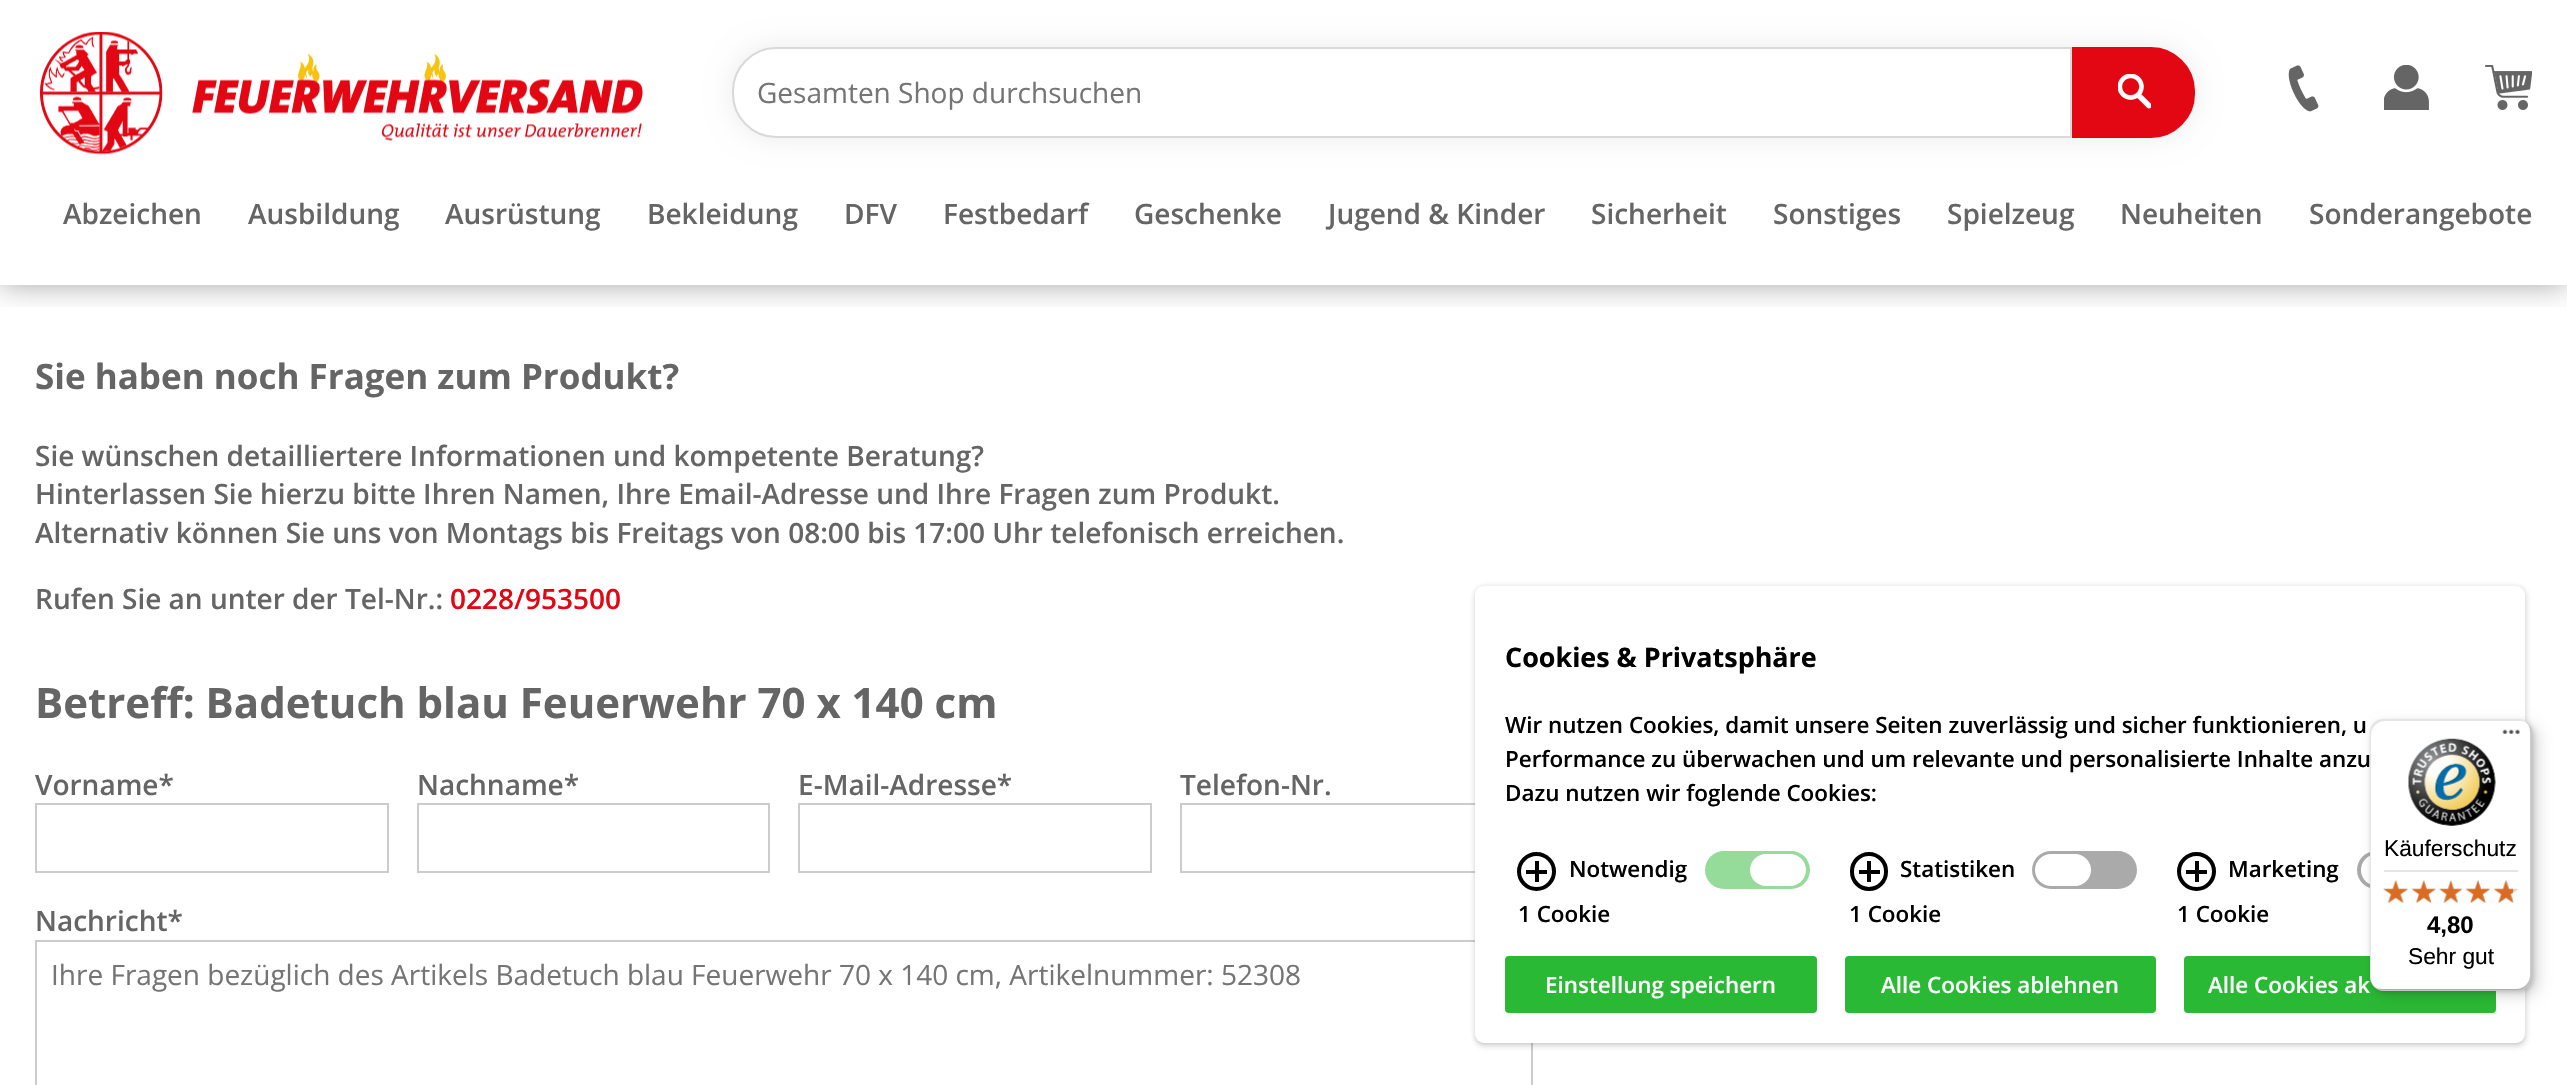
void draw(SkCanvas* canvas) {
	SkPaint paint;
	paint.setAntiAlias(true);
	auto svgPath = [&](const char* data, bool evenOdd = false) {
		SkPath result = *SkParsePath::FromSVGString(data);
		if (evenOdd) result.setFillType(SkPathFillType::kEvenOdd);
		return result;
	};
	canvas->clear(0xffffffff);
	canvas->save();
	canvas->clipRect(SkRect::MakeXYWH(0, 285, 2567, 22));
	paint.setColor(0x59000000);
	paint.setMaskFilter(SkMaskFilter::MakeBlur(kNormal_SkBlurStyle, 14));
	canvas->drawRect(SkRect::MakeXYWH(0, 0, 2567, 285), paint);
	paint.setMaskFilter(nullptr);
	canvas->restore();
	canvas->drawImageRect(SkImages::DeferredFromEncodedData(SkData::MakeFromFileName("img1.png")), SkRect::MakeXYWH(40, 32, 603, 123), SkSamplingOptions());
	paint.setColor(0x14000000);
	paint.setMaskFilter(SkMaskFilter::MakeBlur(kNormal_SkBlurStyle, 13));
	canvas->drawRoundRect(SkRect::MakeXYWH(732, 47, 1463, 91), 44, 44, paint);
	paint.setMaskFilter(nullptr);
	paint.setColor(0xffffffff);
	canvas->drawPath(svgPath("M776 48H2071V137H776C752.5 137 733 117.5 733 94V91C733 67.5 752.5 48 776 48Z"), paint);
	paint.setStroke(true);
	paint.setStrokeWidth(2);
	paint.setColor(0xffd9d9d9);
	canvas->drawPath(svgPath("M776 48H2071V137H776C752.5 137 733 117.5 733 94V91C733 67.5 752.5 48 776 48Z"), paint);
	SkFont f1(fontMgr->matchFamilyStyle("Open Sans", SkFontStyle::Normal()), 28);
	f1.setSubpixel(true);
	paint.setStroke(false);
	paint.setColor(0xff757575);
	canvas->drawString("Gesamten Shop durchsuchen", 757, 103, f1, paint);
	paint.setColor(0xffe30613);
	canvas->drawPath(svgPath("M2073 48H2151C2174.5 48 2194 67.5 2194 91V94C2194 117.5 2174.5 137 2151 137H2073Z"), paint);
	paint.setStroke(true);
	canvas->drawPath(svgPath("M2073 48H2151C2174.5 48 2194 67.5 2194 91V94C2194 117.5 2174.5 137 2151 137H2073Z"), paint);
	canvas->drawImageRect(SkImages::DeferredFromEncodedData(SkData::MakeFromFileName("img2.png")), SkRect::MakeXYWH(2118, 74, 33, 35), SkSamplingOptions());
	canvas->drawImageRect(SkImages::DeferredFromEncodedData(SkData::MakeFromFileName("img3.png")), SkRect::MakeXYWH(2288, 65, 31, 47), SkSamplingOptions());
	canvas->drawImageRect(SkImages::DeferredFromEncodedData(SkData::MakeFromFileName("img4.png")), SkRect::MakeXYWH(2384, 65, 45, 45), SkSamplingOptions());
	canvas->drawImageRect(SkImages::DeferredFromEncodedData(SkData::MakeFromFileName("img5.png")), SkRect::MakeXYWH(2485, 65, 47, 45), SkSamplingOptions());
	SkFont f2(fontMgr->matchFamilyStyle("Open Sans", SkFontStyle(600, SkFontStyle::kNormal_Width, SkFontStyle::kUpright_Slant)), 28);
	f2.setSubpixel(true);
	paint.setStroke(false);
	paint.setColor(0xff656565);
	canvas->drawString("Abzeichen", 63, 224, f2, paint);
	canvas->drawString("Ausbildung", 248, 224, f2, paint);
	canvas->drawString("Ausrüstung", 445, 224, f2, paint);
	canvas->drawString("Bekleidung", 647, 224, f2, paint);
	canvas->drawString("DFV", 844, 224, f2, paint);
	canvas->drawString("Festbedarf", 943, 224, f2, paint);
	canvas->drawString("Geschenke", 1134, 224, f2, paint);
	canvas->drawString("Jugend & Kinder", 1328, 224, f2, paint);
	canvas->drawString("Sicherheit", 1591, 224, f2, paint);
	canvas->drawString("Sonstiges", 1773, 224, f2, paint);
	canvas->drawString("Spielzeug", 1947, 224, f2, paint);
	canvas->drawString("Neuheiten", 2120, 224, f2, paint);
	canvas->drawString("Sonderangebote", 2309, 224, f2, paint);
	SkFont f3(fontMgr->matchFamilyStyle("Open Sans", SkFontStyle::Bold()), 35);
	f3.setSubpixel(true);
	canvas->drawString("Sie haben noch Fragen zum Produkt?", 35, 389, f3, paint);
	canvas->drawString("Sie wünschen detailliertere Informationen und kompetente Beratung?", 35, 466, f2, paint);
	canvas->drawString("Hinterlassen Sie hierzu bitte Ihren Namen, Ihre Email-Adresse und Ihre Fragen zum Produkt.", 35, 504, f2, paint);
	canvas->drawString("Alternativ können Sie uns von Montags bis Freitags von 08:00 bis 17:00 Uhr telefonisch erreichen.", 35, 543, f2, paint);
	canvas->drawString("Rufen Sie an unter der Tel-Nr.:", 35, 609, f2, paint);
	paint.setColor(0xffe30613);
	canvas->drawString("0228/953500", 450, 609, f2, paint);
	SkFont f4(fontMgr->matchFamilyStyle("Open Sans", SkFontStyle::Bold()), 42);
	f4.setSubpixel(true);
	paint.setColor(0xff656565);
	canvas->drawString("Betreff: Badetuch blau Feuerwehr 70 x 140 cm", 35, 718, f4, paint);
	canvas->drawString("Vorname*", 35, 795, f2, paint);
	paint.setStroke(true);
	paint.setColor(0xffcccccc);
	canvas->drawRect(SkRect::MakeXYWH(36, 804, 352, 68), paint);
	paint.setStroke(false);
	paint.setColor(0xff656565);
	canvas->drawString("Nachname*", 417, 795, f2, paint);
	paint.setStroke(true);
	paint.setColor(0xffcccccc);
	canvas->drawRect(SkRect::MakeXYWH(418, 804, 351, 68), paint);
	paint.setStroke(false);
	paint.setColor(0xff656565);
	canvas->drawString("E-Mail-Adresse*", 798, 795, f2, paint);
	paint.setStroke(true);
	paint.setColor(0xffcccccc);
	canvas->drawRect(SkRect::MakeXYWH(799, 804, 352, 68), paint);
	paint.setStroke(false);
	paint.setColor(0xff656565);
	canvas->drawString("Telefon-Nr.", 1180, 795, f2, paint);
	paint.setStroke(true);
	paint.setColor(0xffcccccc);
	canvas->drawRect(SkRect::MakeXYWH(1181, 804, 351, 68), paint);
	paint.setStroke(false);
	paint.setColor(0xff656565);
	canvas->drawString("Nachricht*", 35, 931, f2, paint);
	paint.setStroke(true);
	paint.setColor(0xffcccccc);
	canvas->drawRect(SkRect::MakeXYWH(36, 941, 1496, 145), paint);
	paint.setStroke(false);
	paint.setColor(0xff757575);
	canvas->drawString("Ihre Fragen bezüglich des Artikels Badetuch blau Feuerwehr 70 x 140 cm, Artikelnummer: 52308", 51, 985, f1, paint);
	paint.setColor(0x293c4043);
	paint.setMaskFilter(SkMaskFilter::MakeBlur(kNormal_SkBlurStyle, 2.5));
	canvas->drawRoundRect(SkRect::MakeXYWH(1474, 586, 1053, 461), 11, 11, paint);
	paint.setMaskFilter(nullptr);
	paint.setColor(0x143c4043);
	paint.setMaskFilter(SkMaskFilter::MakeBlur(kNormal_SkBlurStyle, 1));
	canvas->drawRoundRect(SkRect::MakeXYWH(1475, 588, 1050, 457), 9, 9, paint);
	paint.setMaskFilter(nullptr);
	paint.setColor(0xffffffff);
	canvas->drawRoundRect(SkRect::MakeXYWH(1475, 586, 1050, 457), 9, 9, paint);
	SkFont f5(fontMgr->matchFamilyStyle("Open Sans", SkFontStyle::Bold()), 26.9);
	f5.setSubpixel(true);
	paint.setColor(0xff000000);
	canvas->drawString("Cookies & Privatsphäre", 1505, 667, f5, paint);
	SkFont f6(fontMgr->matchFamilyStyle("Open Sans", SkFontStyle(600, SkFontStyle::kNormal_Width, SkFontStyle::kUpright_Slant)), 22.4);
	f6.setSubpixel(true);
	canvas->drawString("Wir nutzen Cookies, damit unsere Seiten zuverlässig und sicher funktionieren, u", 1505, 733, f6, paint);
	canvas->drawString("Performance zu überwachen und um relevante und personalisierte Inhalte anzu", 1505, 767, f6, paint);
	canvas->drawString("Dazu nutzen wir foglende Cookies:", 1505, 801, f6, paint);
	paint.setStroke(true);
	paint.setStrokeWidth(4);
	canvas->drawCircle(1536.5, 871.5, 17.5, paint);
	paint.setStroke(false);
	canvas->drawRect(SkRect::MakeXYWH(1535, 861, 4, 21), paint);
	canvas->drawRect(SkRect::MakeXYWH(1526, 870, 21, 4), paint);
	canvas->drawString("Notwendig", 1569, 877, f6, paint);
	paint.setColor(0xff95dc9a);
	canvas->drawRoundRect(SkRect::MakeXYWH(1705, 851, 105, 38), 19, 19, paint);
	paint.setColor(0xffffffff);
	canvas->drawRoundRect(SkRect::MakeXYWH(1750, 854, 56, 32), 16, 16, paint);
	paint.setColor(0xff000000);
	canvas->drawString("1 Cookie", 1518, 922, f6, paint);
	paint.setStroke(true);
	canvas->drawRoundRect(SkRect::MakeXYWH(1852, 854, 34, 35), 17, 17, paint);
	paint.setStroke(false);
	canvas->drawRect(SkRect::MakeXYWH(1867, 861, 4, 21), paint);
	canvas->drawRect(SkRect::MakeXYWH(1859, 870, 21, 4), paint);
	canvas->drawString("Statistiken", 1900, 877, f6, paint);
	paint.setColor(0xffaaaaaa);
	canvas->drawRoundRect(SkRect::MakeXYWH(2032, 851, 105, 38), 19, 19, paint);
	paint.setColor(0xffffffff);
	canvas->drawRoundRect(SkRect::MakeXYWH(2035, 854, 56, 32), 16, 16, paint);
	paint.setColor(0xff000000);
	canvas->drawString("1 Cookie", 1849, 922, f6, paint);
	paint.setStroke(true);
	canvas->drawCircle(2196.5, 871.5, 17.5, paint);
	paint.setStroke(false);
	canvas->drawRect(SkRect::MakeXYWH(2195, 861, 4, 21), paint);
	canvas->drawRect(SkRect::MakeXYWH(2186, 870, 21, 4), paint);
	canvas->drawString("Marketing", 2228, 877, f6, paint);
	paint.setColor(0xffaaaaaa);
	canvas->drawRoundRect(SkRect::MakeXYWH(2357, 851, 105, 38), 19, 19, paint);
	paint.setColor(0xffffffff);
	canvas->drawRoundRect(SkRect::MakeXYWH(2361, 854, 56, 32), 16, 16, paint);
	paint.setColor(0xff000000);
	canvas->drawString("1 Cookie", 2177, 922, f6, paint);
	paint.setColor(0xff2ab934);
	canvas->drawRoundRect(SkRect::MakeXYWH(1506, 957, 310, 55), 3, 3, paint);
	paint.setStroke(true);
	paint.setStrokeWidth(2);
	canvas->drawRoundRect(SkRect::MakeXYWH(1506, 957, 310, 55), 3, 3, paint);
	paint.setStroke(false);
	paint.setColor(0xffffffff);
	canvas->drawString("Einstellung speichern", 1545, 993, f6, paint);
	paint.setColor(0xff2ab934);
	canvas->drawRoundRect(SkRect::MakeXYWH(1846, 957, 309, 55), 3, 3, paint);
	paint.setStroke(true);
	canvas->drawRoundRect(SkRect::MakeXYWH(1846, 957, 309, 55), 3, 3, paint);
	paint.setStroke(false);
	paint.setColor(0xffffffff);
	canvas->drawString("Alle Cookies ablehnen", 1881, 993, f6, paint);
	paint.setColor(0xff2ab934);
	canvas->drawRoundRect(SkRect::MakeXYWH(2185, 957, 310, 55), 3, 3, paint);
	paint.setStroke(true);
	canvas->drawRoundRect(SkRect::MakeXYWH(2185, 957, 310, 55), 3, 3, paint);
	paint.setStroke(false);
	paint.setColor(0xffffffff);
	canvas->drawString("Alle Cookies ak", 2208, 993, f6, paint);
	paint.setColor(0x26000000);
	paint.setMaskFilter(SkMaskFilter::MakeBlur(kNormal_SkBlurStyle, 7));
	canvas->drawRoundRect(SkRect::MakeXYWH(2375, 725, 163, 271), 14, 14, paint);
	paint.setMaskFilter(nullptr);
	paint.setMaskFilter(SkMaskFilter::MakeBlur(kNormal_SkBlurStyle, 2));
	canvas->drawRoundRect(SkRect::MakeXYWH(2371, 721, 163, 271), 14, 14, paint);
	paint.setMaskFilter(nullptr);
	paint.setColor(0xffffffff);
	canvas->drawRoundRect(SkRect::MakeXYWH(2370, 719, 162, 272), 14, 14, paint);
	paint.setColor(0x1a000000);
	canvas->drawPath(svgPath("M2385 721H2520C2523 721 2526 722 2528 724C2526 721 2522 719 2518 719H2384C2376 719 2370 725 2370 733V977C2370 982 2372 986 2376 988C2373 986 2371 982 2371 978V735C2371 727 2378 721 2385 721Z"), paint);
	paint.setColor(0x33000000);
	canvas->drawPath(svgPath("M2373 985C2375 989 2379 991 2384 991H2518C2526 991 2532 985 2532 977V733C2532 727 2529 723 2524 720C2528 723 2530 727 2530 732V975C2530 982 2524 989 2516 989H2382C2378 989 2375 988 2373 985Z"), paint);
	paint.setColor(0x33323232);
	canvas->drawPath(svgPath("M2373 985C2375 989 2379 991 2384 991H2518C2526 991 2532 985 2532 977V733C2532 729 2531 726 2528 724C2530 726 2531 729 2531 732V975C2531 983 2525 989 2517 989H2382C2379 989 2375 988 2373 985Z"), paint);
	paint.setColor(0x4dffffff);
	canvas->drawPath(svgPath("M2373 985C2375 989 2379 991 2384 991H2518C2526 991 2532 985 2532 977V733C2532 728 2530 724 2527 722C2529 725 2531 728 2531 732V976C2531 983 2525 990 2517 990H2383C2379 990 2375 988 2373 985Z"), paint);
	canvas->drawImageRect(SkImages::DeferredFromEncodedData(SkData::MakeFromFileName("img6.png")), SkRect::MakeXYWH(2502, 729, 18, 5), SkSamplingOptions());
	canvas->drawImageRect(SkImages::DeferredFromEncodedData(SkData::MakeFromFileName("img7.png")), SkRect::MakeXYWH(2408, 738, 88, 88), SkSamplingOptions());
	SkFont f7(fontMgr->matchFamilyStyle("Liberation Sans", SkFontStyle::Normal()), 22.75);
	f7.setSubpixel(true);
	paint.setColor(0xff000000);
	canvas->drawString("Käuferschutz", 2384, 856, f7, paint);
	paint.setColor(0xffe5e5e5);
	canvas->drawRect(SkRect::MakeXYWH(2384, 870, 134, 2), paint);
	canvas->drawImageRect(SkImages::DeferredFromEncodedData(SkData::MakeFromFileName("img8.png")), SkRect::MakeXYWH(2383, 880, 25, 23), SkSamplingOptions());
	canvas->drawImageRect(SkImages::DeferredFromEncodedData(SkData::MakeFromFileName("img9.png")), SkRect::MakeXYWH(2412, 880, 24, 23), SkSamplingOptions());
	canvas->drawImageRect(SkImages::DeferredFromEncodedData(SkData::MakeFromFileName("img10.png")), SkRect::MakeXYWH(2439, 881, 23, 22), SkSamplingOptions());
	canvas->drawImageRect(SkImages::DeferredFromEncodedData(SkData::MakeFromFileName("img11.png")), SkRect::MakeXYWH(2466, 880, 24, 23), SkSamplingOptions());
	canvas->drawImageRect(SkImages::DeferredFromEncodedData(SkData::MakeFromFileName("img12.png")), SkRect::MakeXYWH(2494, 880, 24, 23), SkSamplingOptions());
	canvas->drawImageRect(SkImages::DeferredFromEncodedData(SkData::MakeFromFileName("img13.png")), SkRect::MakeXYWH(2383, 880, 25, 23), SkSamplingOptions());
	canvas->drawImageRect(SkImages::DeferredFromEncodedData(SkData::MakeFromFileName("img14.png")), SkRect::MakeXYWH(2411, 880, 25, 23), SkSamplingOptions());
	canvas->drawImageRect(SkImages::DeferredFromEncodedData(SkData::MakeFromFileName("img15.png")), SkRect::MakeXYWH(2439, 880, 24, 23), SkSamplingOptions());
	canvas->drawImageRect(SkImages::DeferredFromEncodedData(SkData::MakeFromFileName("img16.png")), SkRect::MakeXYWH(2465, 880, 25, 23), SkSamplingOptions());
	canvas->drawImageRect(SkImages::DeferredFromEncodedData(SkData::MakeFromFileName("img17.png")), SkRect::MakeXYWH(2493, 880, 20, 23), SkSamplingOptions());
	SkFont f8(fontMgr->matchFamilyStyle("Liberation Sans", SkFontStyle::Bold()), 24);
	f8.setSubpixel(true);
	paint.setColor(0xff000000);
	canvas->drawString("4,80", 2427, 933, f8, paint);
	canvas->drawString("Sehr gut", 2408, 964, f7, paint);
}
